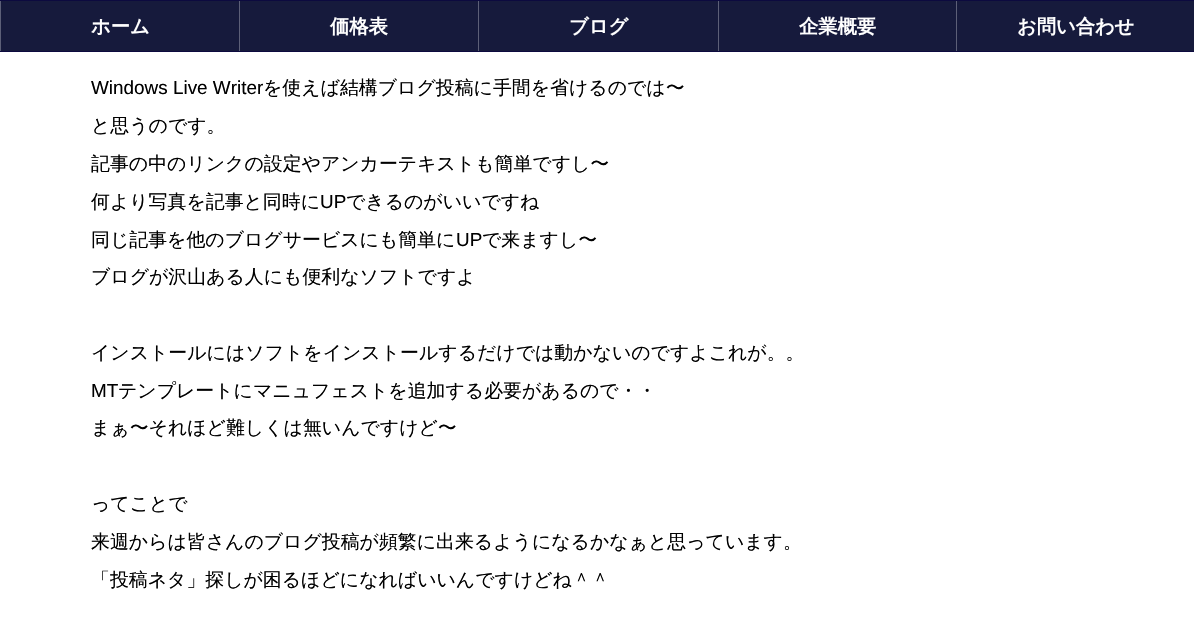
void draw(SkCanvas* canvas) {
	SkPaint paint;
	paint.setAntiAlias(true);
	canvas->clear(0xffffffff);
	paint.setColor(0xff0c0a3f);
	canvas->drawRect(SkRect::MakeXYWH(0, 0, 1194, 1), paint);
	canvas->drawRect(SkRect::MakeXYWH(0, 51, 1194, 1), paint);
	paint.setColor(0xff161a3c);
	canvas->drawRect(SkRect::MakeXYWH(1, 1, 1193, 50), paint);
	paint.setColor(0xff5c5f77);
	canvas->drawRect(SkRect::MakeXYWH(0, 1, 1, 50), paint);
	SkFont f1(fontMgr->matchFamilyStyle("WenQuanYi Zen Hei", SkFontStyle::Bold()), 19.25);
	f1.setSubpixel(true);
	paint.setColor(0xffffffff);
	canvas->drawString("ホーム", 91, 33, f1, paint);
	paint.setColor(0xff5c5f77);
	canvas->drawRect(SkRect::MakeXYWH(239, 1, 1, 50), paint);
	paint.setColor(0xffffffff);
	canvas->drawString("価格表", 330, 33, f1, paint);
	paint.setColor(0xff5c5f77);
	canvas->drawRect(SkRect::MakeXYWH(478, 1, 1, 50), paint);
	paint.setColor(0xffffffff);
	canvas->drawString("ブログ", 569, 33, f1, paint);
	paint.setColor(0xff5c5f77);
	canvas->drawRect(SkRect::MakeXYWH(718, 1, 1, 50), paint);
	paint.setColor(0xffffffff);
	canvas->drawString("企業概要", 799, 33, f1, paint);
	paint.setColor(0xff5c5f77);
	canvas->drawRect(SkRect::MakeXYWH(956, 1, 1, 50), paint);
	paint.setColor(0xffffffff);
	canvas->drawString("お問い合わせ", 1017, 33, f1, paint);
	SkFont f2(fontMgr->matchFamilyStyle("Liberation Sans", SkFontStyle::Normal()), 18.9);
	f2.setSubpixel(true);
	paint.setColor(0xff000000);
	canvas->drawString("Windows Live Writer", 91, 94, f2, paint);
	SkFont f3(fontMgr->matchFamilyStyle("WenQuanYi Zen Hei", SkFontStyle(500, SkFontStyle::kNormal_Width, SkFontStyle::kUpright_Slant)), 18.9);
	f3.setSubpixel(true);
	canvas->drawString("を使えば結構ブログ投稿に手間を省けるのでは〜", 263, 94, f3, paint);
	canvas->drawString("と思うのです。", 91, 132, f3, paint);
	canvas->drawString("記事の中のリンクの設定やアンカーテキストも簡単ですし〜", 91, 170, f3, paint);
	canvas->drawString("何より写真を記事と同時に", 91, 208, f3, paint);
	canvas->drawString("UP", 320, 208, f2, paint);
	canvas->drawString("できるのがいいですね", 346, 208, f3, paint);
	canvas->drawString("同じ記事を他のブログサービスにも簡単に", 91, 246, f3, paint);
	canvas->drawString("UP", 456, 246, f2, paint);
	canvas->drawString("で来ますし〜", 482, 246, f3, paint);
	canvas->drawString("ブログが沢山ある人にも便利なソフトですよ", 91, 283, f3, paint);
	canvas->drawString("インストールにはソフトをインストールするだけでは動かないのですよこれが。。", 91, 359, f3, paint);
	canvas->drawString("MT", 91, 397, f2, paint);
	canvas->drawString("テンプレートにマニュフェストを追加する必要があるので・・", 118, 397, f3, paint);
	canvas->drawString("まぁ〜それほど難しくは無いんですけど〜", 91, 434, f3, paint);
	canvas->drawString("ってことで", 91, 510, f3, paint);
	canvas->drawString("来週からは皆さんのブログ投稿が頻繁に出来るようになるかなぁと思っています。", 91, 548, f3, paint);
	canvas->drawString("「投稿ネタ」探しが困るほどになればいいんですけどね＾＾", 91, 586, f3, paint);
}
